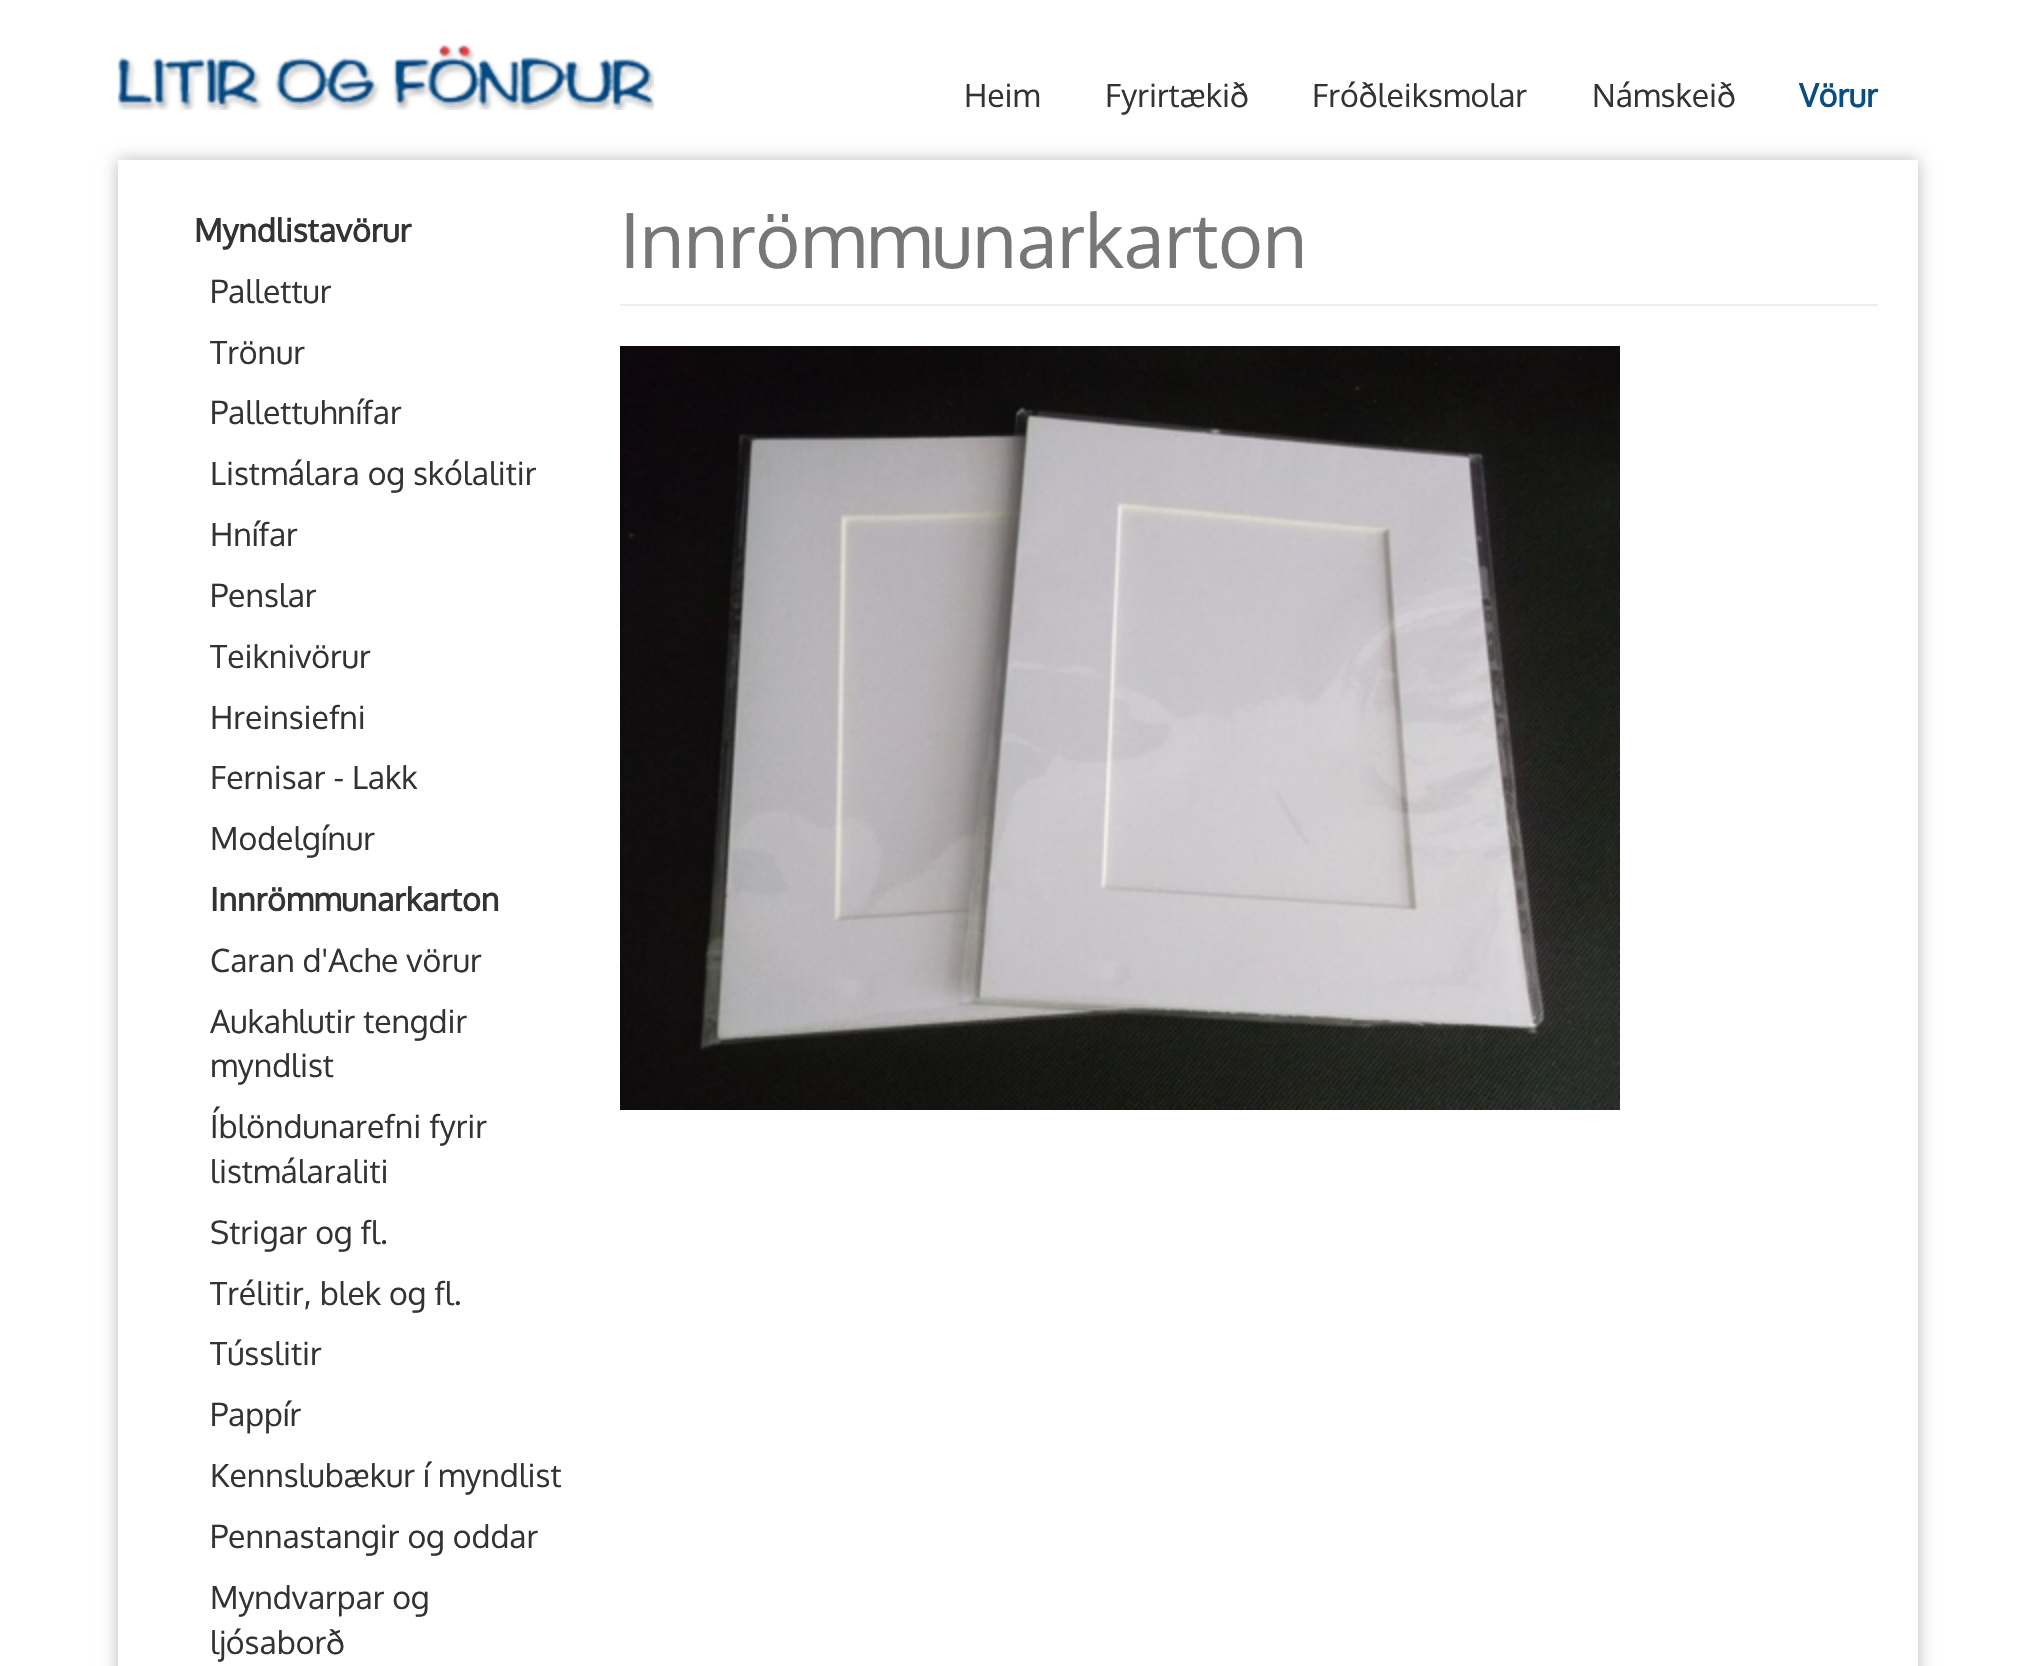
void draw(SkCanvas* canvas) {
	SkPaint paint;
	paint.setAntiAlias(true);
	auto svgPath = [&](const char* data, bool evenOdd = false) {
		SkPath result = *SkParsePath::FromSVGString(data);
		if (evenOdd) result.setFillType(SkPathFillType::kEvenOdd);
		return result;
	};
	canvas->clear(0xffffffff);
	canvas->drawImageRect(SkImages::DeferredFromEncodedData(SkData::MakeFromFileName("img1.png")), SkRect::MakeXYWH(118, 44, 536, 66), SkSamplingOptions());
	SkFont f1(fontMgr->matchFamilyStyle("Oxygen", SkFontStyle::Normal()), 32);
	f1.setSubpixel(true);
	paint.setColor(0xff333333);
	canvas->drawString("Heim", 964, 107, f1, paint);
	canvas->drawString("Fyrirtækið", 1105, 107, f1, paint);
	canvas->drawString("Fróðleiksmolar", 1312, 107, f1, paint);
	canvas->drawString("Námskeið", 1592, 107, f1, paint);
	SkFont f2(fontMgr->matchFamilyStyle("Oxygen", SkFontStyle::Bold()), 32);
	f2.setSubpixel(true);
	paint.setColor(0xff084d83);
	canvas->drawString("Vörur", 1799, 107, f2, paint);
	canvas->save();
	canvas->clipPath(svgPath("M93 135H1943V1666H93ZM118 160H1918V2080H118Z", true), true);
	paint.setColor(0xffbbbbbb);
	paint.setMaskFilter(SkMaskFilter::MakeBlur(kNormal_SkBlurStyle, 8));
	canvas->drawRect(SkRect::MakeXYWH(118, 160, 1800, 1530), paint);
	paint.setMaskFilter(nullptr);
	canvas->restore();
	paint.setColor(0xff333333);
	canvas->drawString("Myndlistavörur", 194, 242, f2, paint);
	canvas->drawString("Pallettur", 210, 303, f1, paint);
	canvas->drawString("Trönur", 210, 364, f1, paint);
	canvas->drawString("Pallettuhnífar", 210, 424, f1, paint);
	canvas->drawString("Listmálara og skólalitir", 210, 485, f1, paint);
	canvas->drawString("Hnífar", 210, 546, f1, paint);
	canvas->drawString("Penslar", 210, 607, f1, paint);
	canvas->drawString("Teiknivörur", 210, 668, f1, paint);
	canvas->drawString("Hreinsiefni", 210, 729, f1, paint);
	canvas->drawString("Fernisar - Lakk", 210, 789, f1, paint);
	canvas->drawString("Modelgínur", 210, 850, f1, paint);
	canvas->drawString("Innrömmunarkarton", 210, 911, f2, paint);
	canvas->drawString("Caran d'Ache vörur", 210, 972, f1, paint);
	canvas->drawString("Aukahlutir tengdir", 210, 1033, f1, paint);
	canvas->drawString("myndlist", 210, 1077, f1, paint);
	canvas->drawString("Íblöndunarefni fyrir", 210, 1138, f1, paint);
	canvas->drawString("listmálaraliti", 210, 1183, f1, paint);
	canvas->drawString("Strigar og fl.", 210, 1244, f1, paint);
	canvas->drawString("Trélitir, blek og fl.", 210, 1305, f1, paint);
	canvas->drawString("Tússlitir", 210, 1365, f1, paint);
	canvas->drawString("Pappír", 210, 1426, f1, paint);
	canvas->drawString("Kennslubækur í myndlist", 210, 1487, f1, paint);
	canvas->drawString("Pennastangir og oddar", 210, 1548, f1, paint);
	canvas->drawString("Myndvarpar og", 210, 1609, f1, paint);
	canvas->drawString("ljósaborð", 210, 1654, f1, paint);
	paint.setColor(0xffeeeeee);
	canvas->drawRect(SkRect::MakeXYWH(620, 304, 1258, 2), paint);
	SkFont f3(fontMgr->matchFamilyStyle("Oxygen", SkFontStyle::Normal()), 76);
	f3.setSubpixel(true);
	paint.setColor(0xff777777);
	canvas->drawString("Innrömmunarkarton", 620, 268, f3, paint);
	canvas->drawImageRect(SkImages::DeferredFromEncodedData(SkData::MakeFromFileName("img2.png")), SkRect::MakeXYWH(620, 346, 1000, 764), SkSamplingOptions());
}
